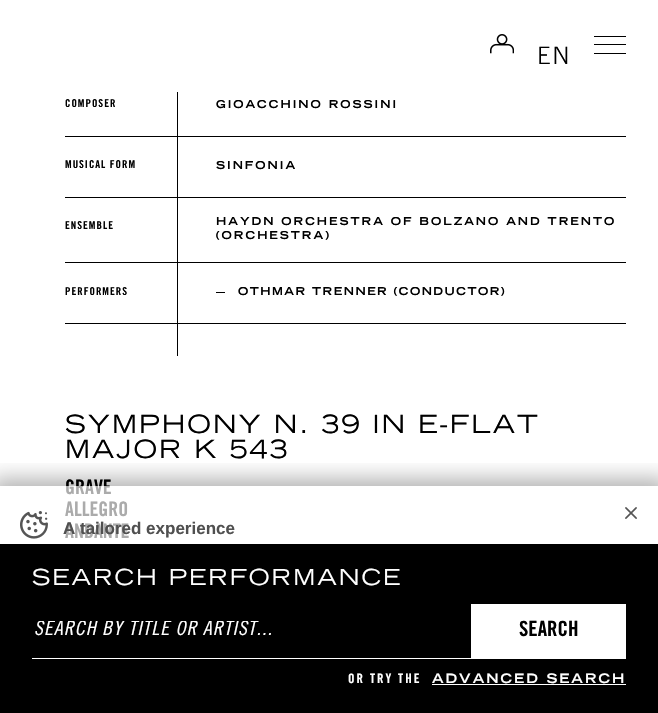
void draw(SkCanvas* canvas) {
	SkPaint paint;
	paint.setAntiAlias(true);
	auto spacedText = [&](const char* s, float x, float y, const SkFont& font, const SkPaint& ink, float letter, float word) {
		std::vector<SkGlyphID> glyphs(font.countText(s, strlen(s), SkTextEncoding::kUTF8));
		std::vector<float> xs(glyphs.size());
		font.textToGlyphs(s, strlen(s), SkTextEncoding::kUTF8, glyphs);
		font.getXPos(glyphs, xs, x);
		float extra = 0;
		for (size_t i = 0; i < glyphs.size(); i++) {
			xs[i] += extra;
			extra += letter + word * (glyphs[i] == font.unicharToGlyph(' '));
		}
		canvas->drawTextBlob(SkTextBlob::MakeFromPosHGlyphs(glyphs, xs, y, font), 0, 0, ink);
	};
	canvas->clear(0xffffffff);
	canvas->drawImageRect(SkImages::DeferredFromEncodedData(SkData::MakeFromFileName("img1.png")), SkRect::MakeXYWH(490, 34, 24, 20), SkSamplingOptions());
	SkFont f1(fontMgr->matchFamilyStyle("Trade Gothic", SkFontStyle(300, SkFontStyle::kNormal_Width, SkFontStyle::kUpright_Slant)), 24);
	f1.setSubpixel(true);
	paint.setColor(0xff000000);
	spacedText("EN", 537, 64, f1, paint, 2, 0);
	canvas->drawRect(SkRect::MakeXYWH(594, 44, 32, 1), paint);
	canvas->drawRect(SkRect::MakeXYWH(594, 36, 32, 1), paint);
	canvas->drawRect(SkRect::MakeXYWH(594, 53, 32, 1), paint);
	canvas->drawRect(SkRect::MakeXYWH(65, 136, 561, 1), paint);
	SkFont f2(fontMgr->matchFamilyStyle("Trade Gothic", SkFontStyle::Bold()), 10.85);
	f2.setSubpixel(true);
	spacedText("COMPOSER", 65, 107, f2, paint, 1, 0);
	canvas->drawRect(SkRect::MakeXYWH(177, 92, 1, 45), paint);
	SkFont f3(fontMgr->matchFamilyStyle("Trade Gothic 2", SkFontStyle::Bold()), 10.85);
	f3.setSubpixel(true);
	spacedText("GIOACCHINO ROSSINI", 216, 108, f3, paint, 2, 0);
	canvas->drawRect(SkRect::MakeXYWH(65, 197, 561, 1), paint);
	spacedText("MUSICAL FORM", 65, 168, f2, paint, 1, 0);
	canvas->drawRect(SkRect::MakeXYWH(177, 137, 1, 61), paint);
	spacedText("SINFONIA", 216, 169, f3, paint, 2, 0);
	canvas->drawRect(SkRect::MakeXYWH(65, 262, 561, 1), paint);
	spacedText("ENSEMBLE", 65, 229, f2, paint, 1, 0);
	canvas->drawRect(SkRect::MakeXYWH(177, 198, 1, 65), paint);
	spacedText("HAYDN ORCHESTRA OF BOLZANO AND TRENTO", 216, 225, f3, paint, 2, 0);
	spacedText("(ORCHESTRA)", 216, 239, f3, paint, 2, 0);
	canvas->drawRect(SkRect::MakeXYWH(65, 323, 561, 1), paint);
	spacedText("PERFORMERS", 65, 295, f2, paint, 1, 0);
	canvas->drawRect(SkRect::MakeXYWH(177, 263, 1, 93), paint);
	canvas->drawRect(SkRect::MakeXYWH(216, 292, 9, 1), paint);
	spacedText("OTHMAR TRENNER (CONDUCTOR)", 238, 295, f3, paint, 1.5, 0);
	SkFont f4(fontMgr->matchFamilyStyle("Trade Gothic", SkFontStyle::Normal()), 25);
	f4.setSubpixel(true);
	spacedText("SYMPHONY N. 39 IN E-FLAT", 65, 433, f4, paint, 2, 0);
	spacedText("MAJOR K 543", 65, 458, f4, paint, 2, 0);
	SkFont f5(fontMgr->matchFamilyStyle("Trade Gothic", SkFontStyle::Bold()), 20);
	f5.setSubpixel(true);
	canvas->drawString("GRAVE", 65, 494, f5, paint);
	canvas->drawString("ALLEGRO", 65, 516, f5, paint);
	canvas->drawString("ANDANTE", 65, 538, f5, paint);
	canvas->save();
	canvas->clipRect(SkRect::MakeXYWH(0, 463, 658, 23));
	paint.setColor(0x4a000000);
	paint.setMaskFilter(SkMaskFilter::MakeBlur(kNormal_SkBlurStyle, 10));
	canvas->drawRect(SkRect::MakeXYWH(-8, 478, 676, 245), paint);
	paint.setMaskFilter(nullptr);
	canvas->restore();
	paint.setColor(0xabffffff);
	canvas->drawRect(SkRect::MakeXYWH(65, 486, 64, 52), paint);
	canvas->drawImageRect(SkImages::DeferredFromEncodedData(SkData::MakeFromFileName("img2.png")), SkRect::MakeXYWH(625, 507, 12, 12), SkSamplingOptions());
	canvas->drawImageRect(SkImages::DeferredFromEncodedData(SkData::MakeFromFileName("img3.png")), SkRect::MakeXYWH(20, 511, 28, 28), SkSamplingOptions());
	SkFont f6(fontMgr->matchFamilyStyle("Liberation Sans", SkFontStyle::Bold()), 17);
	f6.setSubpixel(true);
	paint.setColor(0xff505050);
	canvas->drawString("A tailored experience", 63, 534, f6, paint);
	paint.setColor(0xff000000);
	canvas->drawRect(SkRect::MakeXYWH(0, 544, 658, 169), paint);
	SkFont f7(fontMgr->matchFamilyStyle("Trade Gothic", SkFontStyle::Normal()), 22);
	f7.setSubpixel(true);
	paint.setColor(0xffffffff);
	spacedText("SEARCH PERFORMANCE", 32, 585, f7, paint, 2, 0);
	canvas->drawRect(SkRect::MakeXYWH(32, 658, 439, 1), paint);
	canvas->save();
	canvas->clipRect(SkRect::MakeXYWH(34, 621, 431, 20));
	SkFont f8(fontMgr->matchFamilyStyle("Trade Gothic", SkFontStyle::Italic()), 20);
	f8.setSubpixel(true);
	spacedText("SEARCH BY TITLE OR ARTIST...", 34, 635, f8, paint, 1, 0);
	canvas->restore();
	canvas->drawRect(SkRect::MakeXYWH(471, 604, 155, 55), paint);
	SkFont f9(fontMgr->matchFamilyStyle("Trade Gothic", SkFontStyle::Bold()), 21);
	f9.setSubpixel(true);
	paint.setColor(0xff000000);
	canvas->drawString("SEARCH", 519, 636, f9, paint);
	SkFont f10(fontMgr->matchFamilyStyle("Trade Gothic", SkFontStyle::Bold()), 13);
	f10.setSubpixel(true);
	paint.setColor(0xffffffff);
	spacedText("OR TRY THE", 348, 683, f10, paint, 2, 0);
	SkFont f11(fontMgr->matchFamilyStyle("Trade Gothic 2", SkFontStyle::Bold()), 13);
	f11.setSubpixel(true);
	spacedText("ADVANCED SEARCH", 432, 683, f11, paint, 2, 0);
	canvas->drawRect(SkRect::MakeXYWH(432, 684, 194, 1), paint);
}
